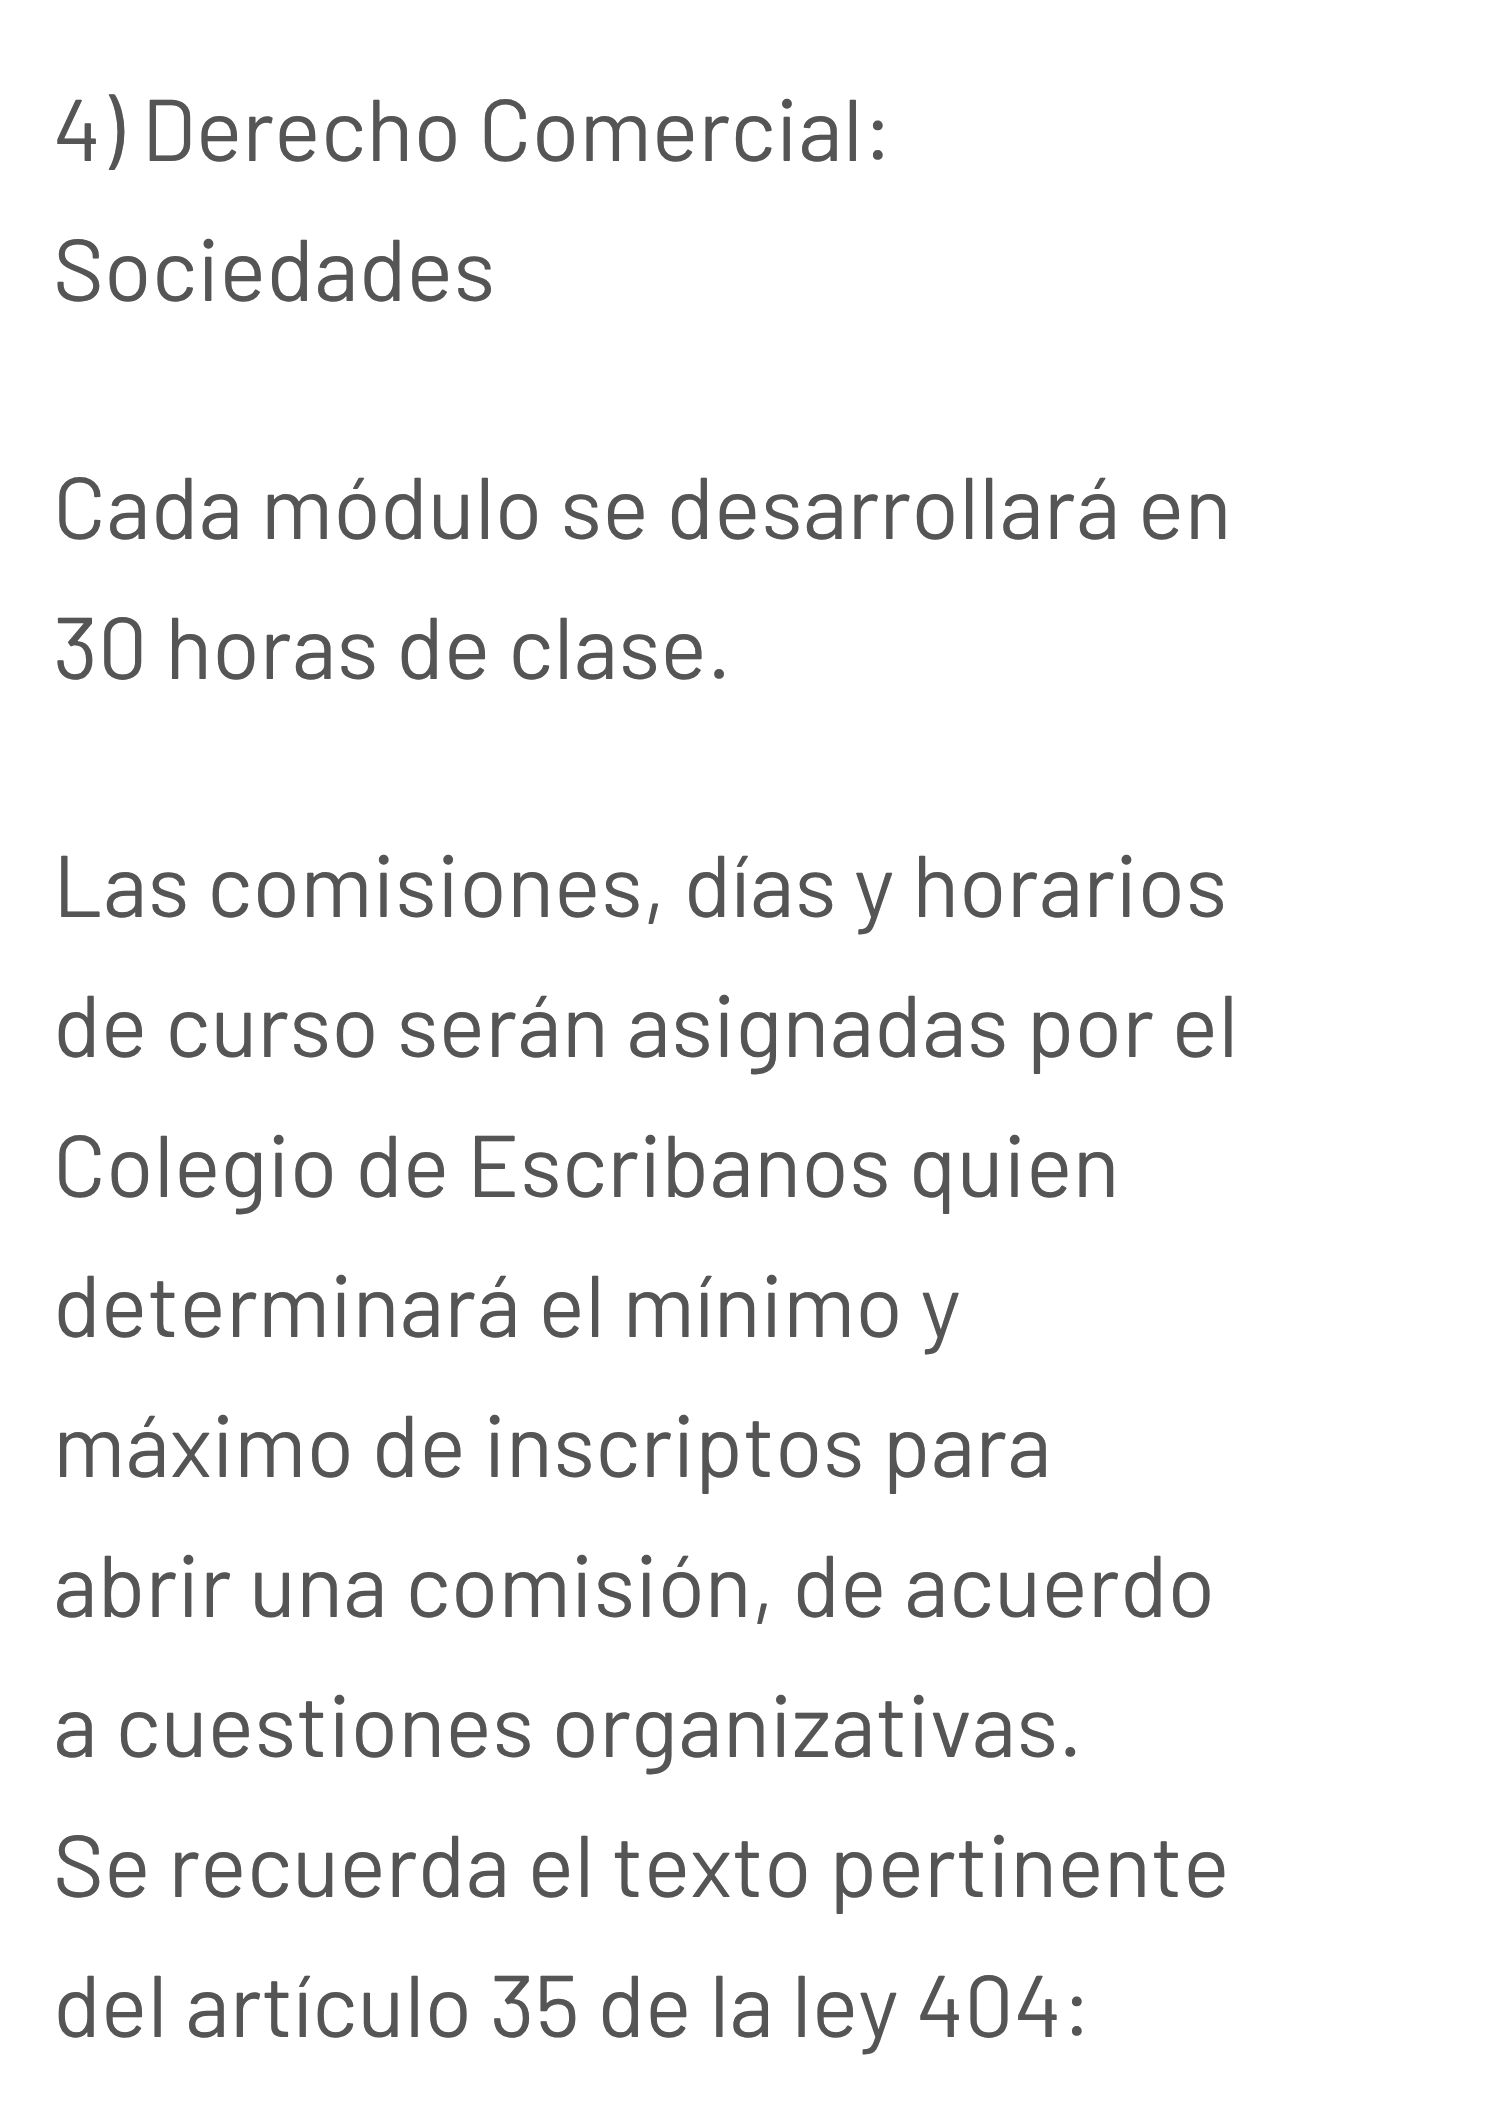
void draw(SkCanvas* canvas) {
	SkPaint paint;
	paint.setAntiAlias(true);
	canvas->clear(0xffffffff);
	SkFont f1(fontMgr->matchFamilyStyle("Barlow", SkFontStyle::Normal()), 87.5);
	f1.setSubpixel(true);
	paint.setColor(0xff555555);
	canvas->drawString("4) Derecho Comercial:", 53, 161, f1, paint);
	canvas->drawString("Sociedades", 53, 301, f1, paint);
	canvas->drawString("Cada módulo se desarrollará en", 53, 539, f1, paint);
	canvas->drawString("30 horas de clase.", 53, 679, f1, paint);
	canvas->drawString("Las comisiones, días y horarios", 53, 917, f1, paint);
	canvas->drawString("de curso serán asignadas por el", 53, 1057, f1, paint);
	canvas->drawString("Colegio de Escribanos quien", 53, 1197, f1, paint);
	canvas->drawString("determinará el mínimo y", 53, 1337, f1, paint);
	canvas->drawString("máximo de inscriptos para", 53, 1477, f1, paint);
	canvas->drawString("abrir una comisión, de acuerdo", 53, 1617, f1, paint);
	canvas->drawString("a cuestiones organizativas.", 53, 1757, f1, paint);
	canvas->drawString("Se recuerda el texto pertinente", 53, 1897, f1, paint);
	canvas->drawString("del artículo 35 de la ley 404:", 53, 2037, f1, paint);
}
